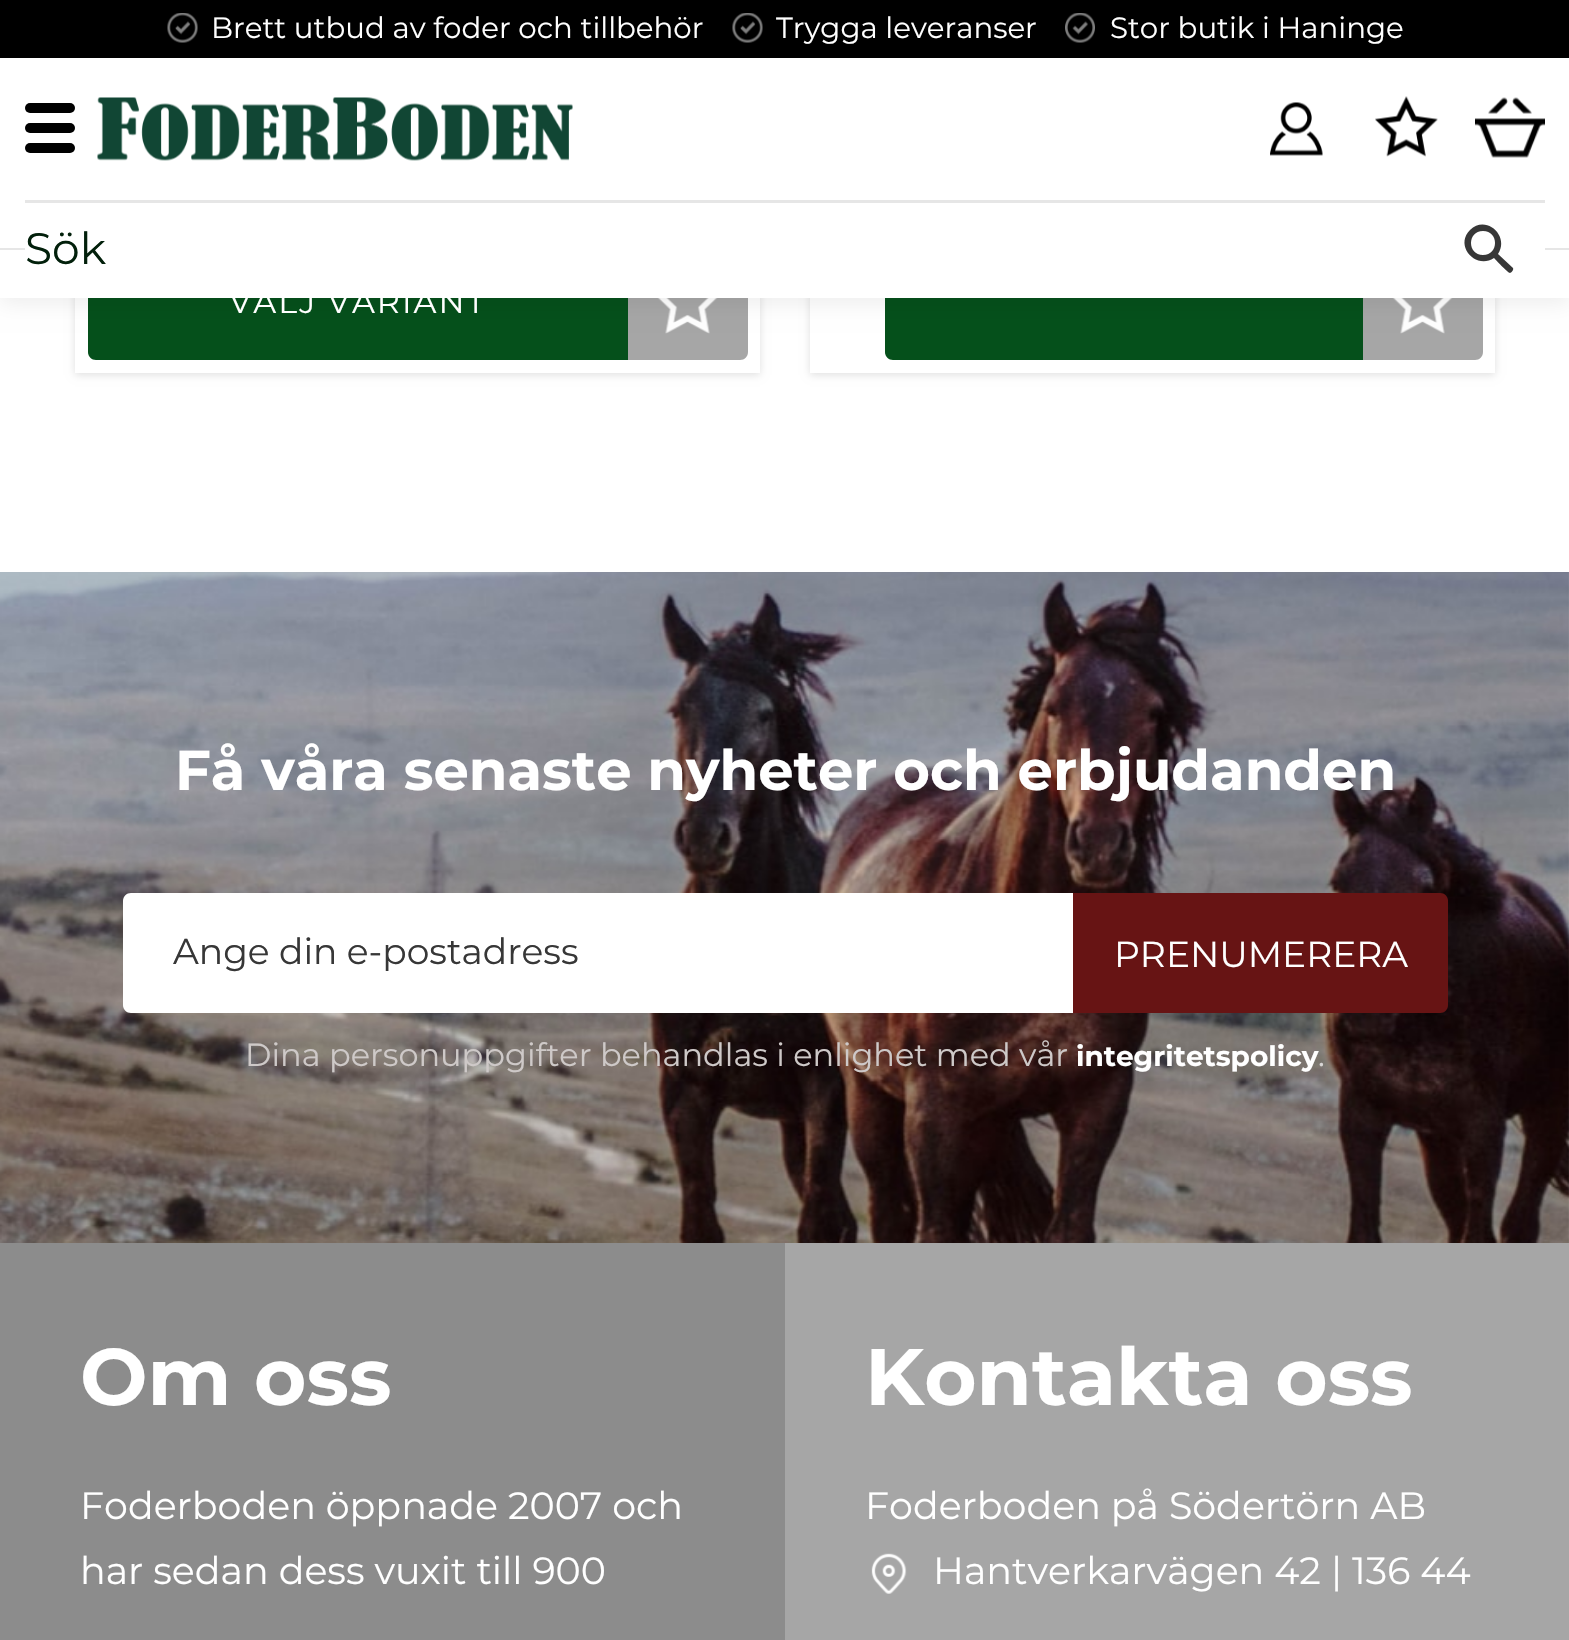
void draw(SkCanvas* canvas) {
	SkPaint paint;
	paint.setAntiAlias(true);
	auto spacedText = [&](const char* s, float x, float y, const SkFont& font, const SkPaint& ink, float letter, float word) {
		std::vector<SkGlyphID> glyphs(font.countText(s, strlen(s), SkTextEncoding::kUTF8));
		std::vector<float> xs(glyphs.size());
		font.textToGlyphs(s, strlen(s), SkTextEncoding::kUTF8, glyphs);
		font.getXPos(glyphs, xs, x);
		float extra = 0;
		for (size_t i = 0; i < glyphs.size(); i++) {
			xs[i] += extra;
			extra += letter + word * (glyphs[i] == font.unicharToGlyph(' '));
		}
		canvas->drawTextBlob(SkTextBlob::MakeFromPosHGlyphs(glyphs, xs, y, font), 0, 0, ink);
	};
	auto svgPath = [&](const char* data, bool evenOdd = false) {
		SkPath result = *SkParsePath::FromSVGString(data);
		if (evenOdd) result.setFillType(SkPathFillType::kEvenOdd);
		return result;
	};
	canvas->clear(0xffffffff);
	paint.setColor(0x1f000000);
	paint.setMaskFilter(SkMaskFilter::MakeBlur(kNormal_SkBlurStyle, 4));
	canvas->drawRect(SkRect::MakeXYWH(75, -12, 685, 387), paint);
	paint.setMaskFilter(nullptr);
	paint.setColor(0xffffffff);
	canvas->drawRect(SkRect::MakeXYWH(75, 298, 685, 75), paint);
	paint.setColor(0xff05501b);
	canvas->drawPath(svgPath("M88 240H628V360H96C91.5 360 88 356.5 88 352Z"), paint);
	paint.setColor(0xffa6a6a6);
	canvas->drawPath(svgPath("M628 240H748V352C748 356.5 744.5 360 740 360H628Z"), paint);
	canvas->drawImageRect(SkImages::DeferredFromEncodedData(SkData::MakeFromFileName("img8.png")), SkRect::MakeXYWH(657, 298, 61, 36), SkSamplingOptions());
	paint.setColor(0x1f000000);
	paint.setMaskFilter(SkMaskFilter::MakeBlur(kNormal_SkBlurStyle, 4));
	canvas->drawRect(SkRect::MakeXYWH(810, -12, 685, 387), paint);
	paint.setMaskFilter(nullptr);
	paint.setColor(0xffffffff);
	canvas->drawRect(SkRect::MakeXYWH(810, 298, 685, 75), paint);
	paint.setColor(0xff05501b);
	canvas->drawPath(svgPath("M885 240H1425V360H893C888.5 360 885 356.5 885 352Z"), paint);
	paint.setColor(0xffa6a6a6);
	canvas->drawPath(svgPath("M1363 240H1483V352C1483 356.5 1479.5 360 1475 360H1363Z"), paint);
	canvas->drawImageRect(SkImages::DeferredFromEncodedData(SkData::MakeFromFileName("img9.png")), SkRect::MakeXYWH(1392, 298, 61, 36), SkSamplingOptions());
	paint.setColor(0x12000000);
	paint.setMaskFilter(SkMaskFilter::MakeBlur(kNormal_SkBlurStyle, 10));
	canvas->drawRect(SkRect::MakeXYWH(0, 5, 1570, 298), paint);
	paint.setMaskFilter(nullptr);
	paint.setColor(0xffffffff);
	canvas->drawRect(SkRect::MakeXYWH(0, 58, 1569, 240), paint);
	paint.setColor(0xff000000);
	canvas->drawRect(SkRect::MakeXYWH(0, 0, 1569, 58), paint);
	canvas->drawImageRect(SkImages::DeferredFromEncodedData(SkData::MakeFromFileName("img1.png")), SkRect::MakeXYWH(167, 13, 31, 30), SkSamplingOptions());
	SkFont f1(fontMgr->matchFamilyStyle("Montserrat", SkFontStyle::Normal()), 29.25);
	f1.setSubpixel(true);
	paint.setColor(0xffffffff);
	canvas->drawString("Brett utbud av foder och tillbehör", 211, 38, f1, paint);
	canvas->drawImageRect(SkImages::DeferredFromEncodedData(SkData::MakeFromFileName("img2.png")), SkRect::MakeXYWH(732, 13, 31, 30), SkSamplingOptions());
	canvas->drawString("Trygga leveranser", 776, 38, f1, paint);
	canvas->drawImageRect(SkImages::DeferredFromEncodedData(SkData::MakeFromFileName("img3.png")), SkRect::MakeXYWH(1065, 13, 30, 30), SkSamplingOptions());
	canvas->drawString("Stor butik i Haninge", 1110, 38, f1, paint);
	canvas->drawImageRect(SkImages::DeferredFromEncodedData(SkData::MakeFromFileName("img4.png")), SkRect::MakeXYWH(97, 97, 476, 64), SkSamplingOptions());
	canvas->drawImageRect(SkImages::DeferredFromEncodedData(SkData::MakeFromFileName("img5.png")), SkRect::MakeXYWH(1270, 102, 53, 54), SkSamplingOptions());
	canvas->drawImageRect(SkImages::DeferredFromEncodedData(SkData::MakeFromFileName("img6.png")), SkRect::MakeXYWH(1375, 96, 63, 61), SkSamplingOptions());
	canvas->drawImageRect(SkImages::DeferredFromEncodedData(SkData::MakeFromFileName("img7.png")), SkRect::MakeXYWH(1475, 97, 70, 61), SkSamplingOptions());
	paint.setColor(0xffe6e6e6);
	canvas->drawRect(SkRect::MakeXYWH(25, 200, 1520, 3), paint);
	canvas->drawRect(SkRect::MakeXYWH(0, 248, 1569, 2), paint);
	paint.setColor(0xffffffff);
	canvas->drawRect(SkRect::MakeXYWH(25, 248, 1520, 2), paint);
	SkFont f2(fontMgr->matchFamilyStyle("Montserrat", SkFontStyle::Normal()), 44);
	f2.setSubpixel(true);
	paint.setColor(0xff02200b);
	canvas->drawString("Sök", 25, 264, f2, paint);
	paint.setColor(0xff373737);
	canvas->drawPath(svgPath("M1513 268C1514 270 1511 273 1510 273C1508 273 1495 259 1494 258C1476 270 1454 246 1470 230C1486 214 1510 236 1498 254ZM1483 231C1467 231 1467 255 1483 255C1499 255 1499 231 1483 231Z"), paint);
	paint.setColor(0xff000000);
	canvas->drawRoundRect(SkRect::MakeXYWH(25, 123, 50, 10), 5, 5, paint);
	canvas->drawRoundRect(SkRect::MakeXYWH(25, 103, 50, 10), 5, 5, paint);
	canvas->drawRoundRect(SkRect::MakeXYWH(25, 143, 50, 10), 5, 5, paint);
	SkFont f3(fontMgr->matchFamilyStyle("Montserrat", SkFontStyle::Normal()), 32);
	f3.setSubpixel(true);
	paint.setColor(0xffffffff);
	spacedText("VÄLJ VARIANT", 229, 313, f3, paint, 2, 0);
	canvas->drawImageRect(SkImages::DeferredFromEncodedData(SkData::MakeFromFileName("img10.png")), SkRect::MakeXYWH(0, 572, 1569, 671), SkSamplingOptions());
	SkFont f4(fontMgr->matchFamilyStyle("Montserrat", SkFontStyle::Bold()), 56);
	f4.setSubpixel(true);
	canvas->drawString("Få våra senaste nyheter och erbjudanden", 175, 790, f4, paint);
	canvas->drawPath(svgPath("M131 893H1073V1013H131C126.5 1013 123 1009.5 123 1005V901C123 896.5 126.5 893 131 893Z"), paint);
	SkFont f5(fontMgr->matchFamilyStyle("Montserrat", SkFontStyle::Normal()), 36);
	f5.setSubpixel(true);
	paint.setColor(0xff373737);
	canvas->drawString("Ange din e-postadress", 173, 964, f5, paint);
	paint.setColor(0xff671414);
	canvas->drawPath(svgPath("M1073 893H1440C1444.5 893 1448 896.5 1448 901V1005C1448 1009.5 1444.5 1013 1440 1013H1073Z"), paint);
	paint.setColor(0xffffffff);
	canvas->drawString("PRENUMERERA", 1114, 967, f5, paint);
	paint.setColor(0xffcec9c8);
	canvas->drawString("Dina personuppgifter behandlas i enlighet med vår", 245, 1066, f3, paint);
	SkFont f6(fontMgr->matchFamilyStyle("Montserrat", SkFontStyle::Bold()), 28);
	f6.setSubpixel(true);
	paint.setColor(0xffffffff);
	canvas->drawString("integritetspolicy", 1076, 1066, f6, paint);
	paint.setColor(0xffd8d6d5);
	canvas->drawString(".", 1318, 1066, f3, paint);
	paint.setColor(0xff8c8c8c);
	canvas->drawRect(SkRect::MakeXYWH(0, 1243, 785, 397), paint);
	SkFont f7(fontMgr->matchFamilyStyle("Montserrat", SkFontStyle::Bold()), 80);
	f7.setSubpixel(true);
	paint.setColor(0xffffffff);
	canvas->drawString("Om oss", 80, 1405, f7, paint);
	SkFont f8(fontMgr->matchFamilyStyle("Montserrat", SkFontStyle::Normal()), 38);
	f8.setSubpixel(true);
	canvas->drawString("Foderboden öppnade 2007 och", 80, 1519, f8, paint);
	canvas->drawString("har sedan dess vuxit till 900", 80, 1584, f8, paint);
	paint.setColor(0xffa6a6a6);
	canvas->drawRect(SkRect::MakeXYWH(785, 1243, 784, 397), paint);
	paint.setColor(0xffffffff);
	canvas->drawString("Kontakta oss", 865, 1405, f7, paint);
	canvas->drawString("Foderboden på Södertörn AB", 865, 1519, f8, paint);
	canvas->drawImageRect(SkImages::DeferredFromEncodedData(SkData::MakeFromFileName("img11.png")), SkRect::MakeXYWH(871, 1553, 36, 41), SkSamplingOptions());
	canvas->drawString("Hantverkarvägen 42 | 136 44", 933, 1584, f8, paint);
}
